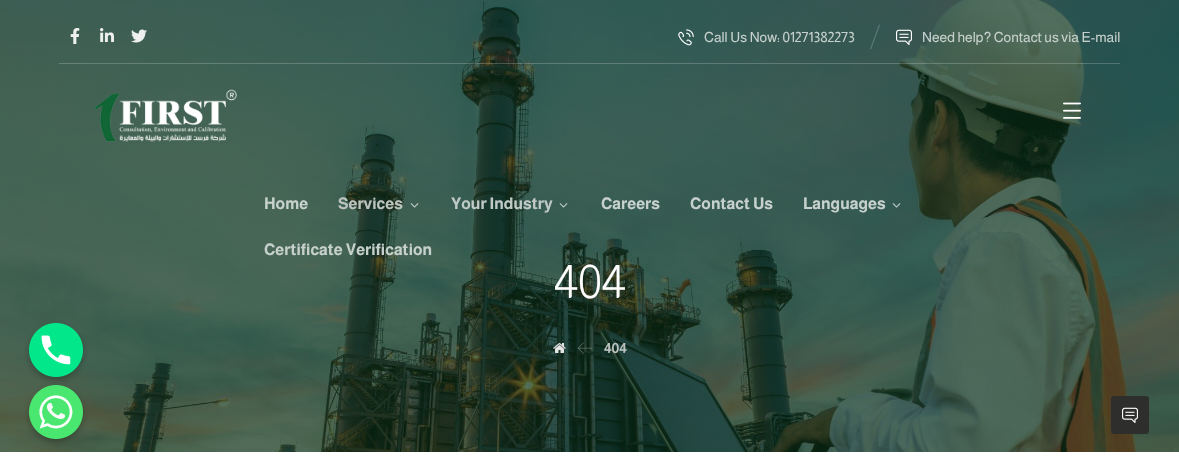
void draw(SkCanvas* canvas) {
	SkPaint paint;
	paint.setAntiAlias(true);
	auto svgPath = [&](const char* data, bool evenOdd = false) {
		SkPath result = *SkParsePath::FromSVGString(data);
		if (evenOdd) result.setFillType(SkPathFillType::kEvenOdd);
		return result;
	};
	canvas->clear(0xffffffff);
	canvas->drawImageRect(SkImages::DeferredFromEncodedData(SkData::MakeFromFileName("img11.png")), SkRect::MakeXYWH(0, 0, 1179, 452), SkSamplingOptions());
	paint.setColor(0x33ffffff);
	canvas->drawRect(SkRect::MakeXYWH(59, 63, 1061, 1), paint);
	canvas->drawImageRect(SkImages::DeferredFromEncodedData(SkData::MakeFromFileName("img1.png")), SkRect::MakeXYWH(70, 28, 10, 16), SkSamplingOptions());
	canvas->drawImageRect(SkImages::DeferredFromEncodedData(SkData::MakeFromFileName("img2.png")), SkRect::MakeXYWH(100, 28, 14, 14), SkSamplingOptions());
	canvas->drawImageRect(SkImages::DeferredFromEncodedData(SkData::MakeFromFileName("img3.png")), SkRect::MakeXYWH(131, 29, 16, 14), SkSamplingOptions());
	canvas->drawImageRect(SkImages::DeferredFromEncodedData(SkData::MakeFromFileName("img4.png")), SkRect::MakeXYWH(678, 29, 16, 17), SkSamplingOptions());
	SkFont f1(fontMgr->matchFamilyStyle("Almarai", SkFontStyle::Normal()), 14);
	f1.setSubpixel(true);
	paint.setColor(0xffc6d0cc);
	canvas->drawString("Call Us Now: 01271382273", 704, 42, f1, paint);
	paint.setColor(0x33ffffff);
	canvas->drawPath(svgPath("M879 24.5L880 25L871 49.5L870 49Z"), paint);
	canvas->drawImageRect(SkImages::DeferredFromEncodedData(SkData::MakeFromFileName("img5.png")), SkRect::MakeXYWH(896, 29, 16, 16), SkSamplingOptions());
	paint.setColor(0xffc6d0cc);
	canvas->drawString("Need help? Contact us via E-mail", 922, 42, f1, paint);
	canvas->drawImageRect(SkImages::DeferredFromEncodedData(SkData::MakeFromFileName("img6.png")), SkRect::MakeXYWH(94, 89, 143, 53), SkSamplingOptions());
	canvas->drawImageRect(SkImages::DeferredFromEncodedData(SkData::MakeFromFileName("img7.png")), SkRect::MakeXYWH(1063, 102, 18, 17), SkSamplingOptions());
	SkFont f2(fontMgr->matchFamilyStyle("Almarai", SkFontStyle::Bold()), 16);
	f2.setSubpixel(true);
	canvas->drawString("Home", 264, 209, f2, paint);
	paint.setColor(0xffbcc3c0);
	canvas->drawString("Services", 338, 209, f2, paint);
	canvas->drawImageRect(SkImages::DeferredFromEncodedData(SkData::MakeFromFileName("img8.png")), SkRect::MakeXYWH(410, 203, 9, 5), SkSamplingOptions());
	paint.setColor(0xffbfc9c6);
	canvas->drawString("Your Industry", 451, 209, f2, paint);
	canvas->drawImageRect(SkImages::DeferredFromEncodedData(SkData::MakeFromFileName("img9.png")), SkRect::MakeXYWH(559, 203, 9, 5), SkSamplingOptions());
	paint.setColor(0xffc6d0cc);
	canvas->drawString("Careers", 601, 209, f2, paint);
	canvas->drawString("Contact Us", 690, 209, f2, paint);
	canvas->drawString("Languages", 803, 209, f2, paint);
	canvas->drawImageRect(SkImages::DeferredFromEncodedData(SkData::MakeFromFileName("img10.png")), SkRect::MakeXYWH(892, 203, 9, 5), SkSamplingOptions());
	canvas->drawString("Certificate Verification", 264, 255, f2, paint);
	SkFont f3(fontMgr->matchFamilyStyle("Almarai", SkFontStyle(300, SkFontStyle::kNormal_Width, SkFontStyle::kUpright_Slant)), 46);
	f3.setSubpixel(true);
	paint.setColor(0xffffffff);
	canvas->drawString("404", 554, 298, f3, paint);
	canvas->drawImageRect(SkImages::DeferredFromEncodedData(SkData::MakeFromFileName("img12.png")), SkRect::MakeXYWH(553, 343, 13, 10), SkSamplingOptions());
	canvas->drawImageRect(SkImages::DeferredFromEncodedData(SkData::MakeFromFileName("img13.png")), SkRect::MakeXYWH(578, 342, 14, 12), SkSamplingOptions());
	SkFont f4(fontMgr->matchFamilyStyle("Almarai", SkFontStyle::Bold()), 14);
	f4.setSubpixel(true);
	paint.setColor(0xffbcc3c0);
	canvas->drawString("404", 604, 353, f4, paint);
	paint.setColor(0x40000000);
	paint.setMaskFilter(SkMaskFilter::MakeBlur(kNormal_SkBlurStyle, 3));
	canvas->drawRoundRect(SkRect::MakeXYWH(29, 326, 54, 54), 27, 27, paint);
	paint.setMaskFilter(nullptr);
	canvas->drawImageRect(SkImages::DeferredFromEncodedData(SkData::MakeFromFileName("img14.png")), SkRect::MakeXYWH(29, 323, 54, 54), SkSamplingOptions());
	paint.setMaskFilter(SkMaskFilter::MakeBlur(kNormal_SkBlurStyle, 3));
	canvas->drawRoundRect(SkRect::MakeXYWH(29, 388, 54, 54), 27, 27, paint);
	paint.setMaskFilter(nullptr);
	canvas->drawImageRect(SkImages::DeferredFromEncodedData(SkData::MakeFromFileName("img15.png")), SkRect::MakeXYWH(29, 385, 54, 54), SkSamplingOptions());
	paint.setColor(0xff2e2e2d);
	canvas->drawRoundRect(SkRect::MakeXYWH(1111, 396, 38, 38), 3, 3, paint);
	canvas->drawImageRect(SkImages::DeferredFromEncodedData(SkData::MakeFromFileName("img16.png")), SkRect::MakeXYWH(1122, 407, 16, 16), SkSamplingOptions());
}
